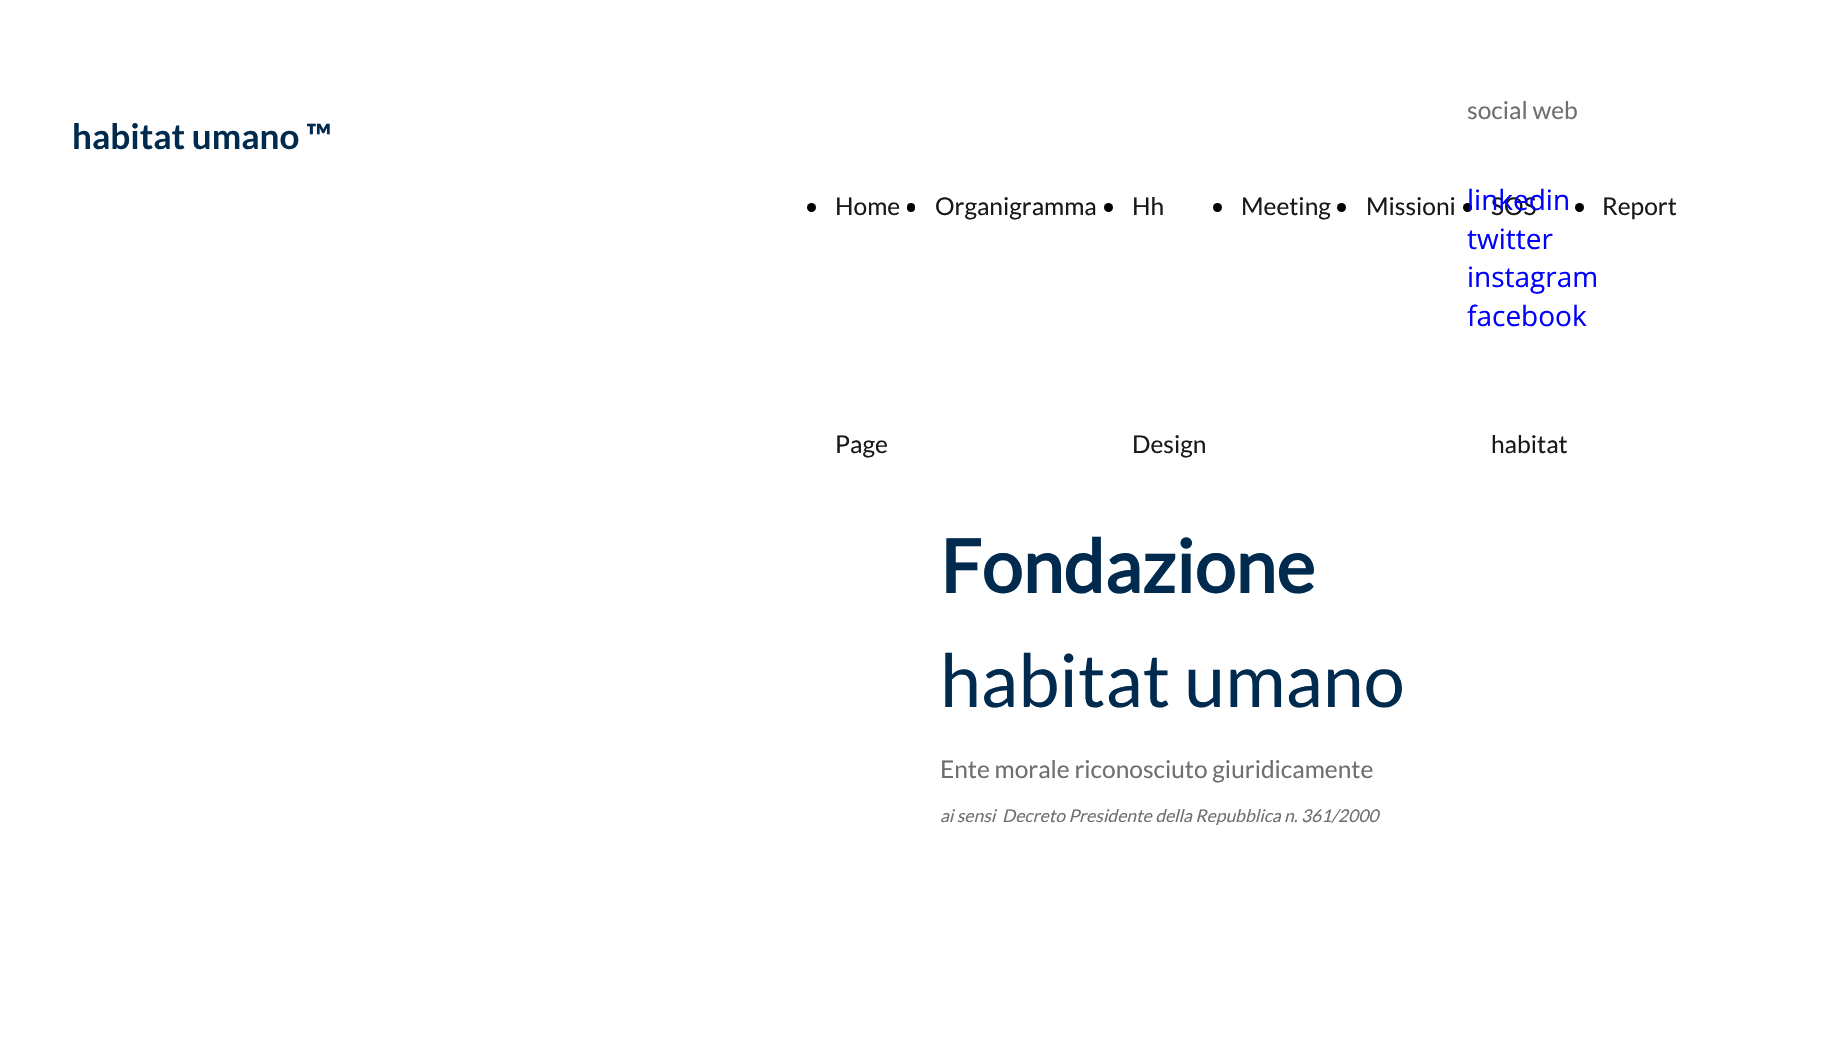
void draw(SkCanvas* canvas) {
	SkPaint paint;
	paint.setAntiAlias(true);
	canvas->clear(0xffffffff);
	SkFont f1(fontMgr->matchFamilyStyle("Lato", SkFontStyle::Normal()), 24.5);
	f1.setSubpixel(true);
	paint.setColor(0xff6f6f6f);
	canvas->drawString("social web", 1467, 119, f1, paint);
	SkFont f2(fontMgr->matchFamilyStyle("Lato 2", SkFontStyle::Bold()), 35);
	f2.setSubpixel(true);
	paint.setColor(0xff002b4f);
	canvas->drawString("habitat umano ™", 72, 149, f2, paint);
	paint.setColor(0xff000000);
	canvas->drawCircle(1467.5, 207.5, 4.5, paint);
	paint.setColor(0xff191919);
	canvas->drawString("SOS", 1491, 215, f1, paint);
	SkFont f3(fontMgr->matchFamilyStyle("Open Sans", SkFontStyle::Normal()), 28);
	f3.setSubpixel(true);
	paint.setColor(0xff0000ff);
	canvas->drawString("linkedin", 1467, 210, f3, paint);
	canvas->drawString("twitter", 1467, 249, f3, paint);
	canvas->drawString("instagram", 1467, 287, f3, paint);
	canvas->drawString("facebook", 1467, 326, f3, paint);
	paint.setColor(0xff000000);
	canvas->drawCircle(811.5, 207.5, 4.5, paint);
	paint.setColor(0xff191919);
	canvas->drawString("Home", 835, 215, f1, paint);
	canvas->drawString("Page", 835, 453, f1, paint);
	paint.setColor(0xff000000);
	canvas->drawRoundRect(SkRect::MakeXYWH(907, 203, 8, 9), 4, 4, paint);
	paint.setColor(0xff191919);
	canvas->drawString("Organigramma", 935, 215, f1, paint);
	paint.setColor(0xff000000);
	canvas->drawCircle(1108.5, 207.5, 4.5, paint);
	paint.setColor(0xff191919);
	canvas->drawString("Hh", 1132, 215, f1, paint);
	canvas->drawString("Design", 1132, 453, f1, paint);
	paint.setColor(0xff000000);
	canvas->drawCircle(1217.5, 207.5, 4.5, paint);
	paint.setColor(0xff191919);
	canvas->drawString("Meeting", 1241, 215, f1, paint);
	paint.setColor(0xff000000);
	canvas->drawCircle(1341.5, 207.5, 4.5, paint);
	paint.setColor(0xff191919);
	canvas->drawString("Missioni", 1366, 215, f1, paint);
	canvas->drawString("habitat", 1491, 453, f1, paint);
	paint.setColor(0xff000000);
	canvas->drawCircle(1579.5, 207.5, 4.5, paint);
	paint.setColor(0xff191919);
	canvas->drawString("Report", 1602, 215, f1, paint);
	SkFont f4(fontMgr->matchFamilyStyle("Lato", SkFontStyle::Bold()), 73.5);
	f4.setSubpixel(true);
	paint.setColor(0xff002b4f);
	canvas->drawString("Fondazione", 940, 593, f4, paint);
	SkFont f5(fontMgr->matchFamilyStyle("Lato", SkFontStyle::Normal()), 73.5);
	f5.setSubpixel(true);
	canvas->drawString("habitat umano", 940, 707, f5, paint);
	paint.setColor(0xff6f6f6f);
	canvas->drawString("Ente morale riconosciuto giuridicamente", 940, 778, f1, paint);
	SkFont f6(fontMgr->matchFamilyStyle("Lato", SkFontStyle::Italic()), 17.5);
	f6.setSubpixel(true);
	canvas->drawString("ai sensi", 940, 822, f6, paint);
	canvas->drawString("Decreto Presidente della Repubblica n. 361/2000", 1002, 822, f6, paint);
}
